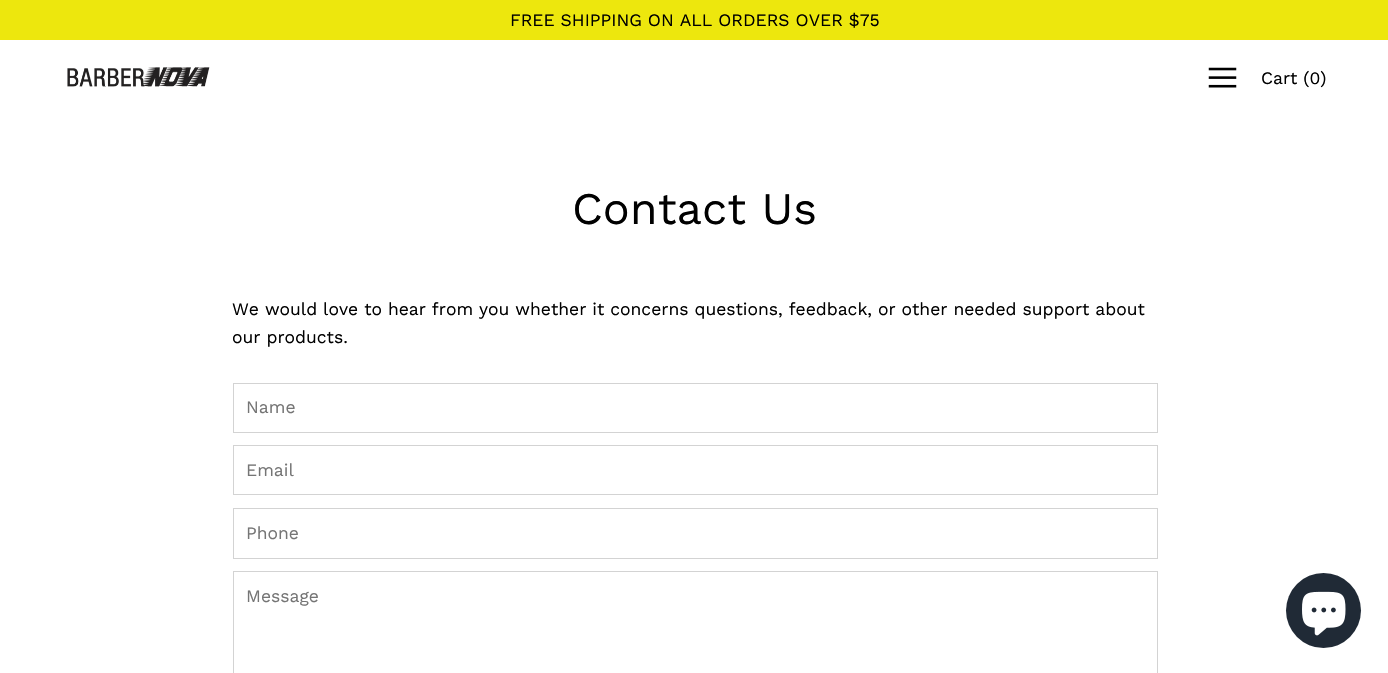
void draw(SkCanvas* canvas) {
	SkPaint paint;
	paint.setAntiAlias(true);
	canvas->clear(0xffffffff);
	paint.setColor(0xffede70d);
	canvas->drawRect(SkRect::MakeXYWH(0, 0, 1388, 40), paint);
	SkFont f1(fontMgr->matchFamilyStyle("Work Sans", SkFontStyle::Normal()), 17.5);
	f1.setSubpixel(true);
	paint.setColor(0xff000000);
	canvas->drawString("FREE SHIPPING ON ALL ORDERS OVER $75", 510, 26, f1, paint);
	canvas->drawImageRect(SkImages::DeferredFromEncodedData(SkData::MakeFromFileName("img1.png")), SkRect::MakeXYWH(67, 67, 143, 20), SkSamplingOptions());
	canvas->drawImageRect(SkImages::DeferredFromEncodedData(SkData::MakeFromFileName("img2.png")), SkRect::MakeXYWH(1208, 67, 29, 21), SkSamplingOptions());
	canvas->drawString("Cart (0)", 1261, 84, f1, paint);
	SkFont f2(fontMgr->matchFamilyStyle("Work Sans", SkFontStyle::Normal()), 45);
	f2.setSubpixel(true);
	canvas->drawString("Contact Us", 572, 224, f2, paint);
	canvas->drawString("We would love to hear from you whether it concerns questions, feedback, or other needed support about", 232, 315, f1, paint);
	canvas->drawString("our products.", 232, 343, f1, paint);
	paint.setStroke(true);
	paint.setStrokeWidth(1);
	paint.setColor(0xffd3d3d3);
	canvas->drawRect(SkRect::MakeXYWH(233.5, 383.5, 924, 49), paint);
	paint.setStroke(false);
	paint.setColor(0xff757575);
	canvas->drawString("Name", 246, 413, f1, paint);
	paint.setStroke(true);
	paint.setColor(0xffd3d3d3);
	canvas->drawRect(SkRect::MakeXYWH(233.5, 445.5, 924, 49), paint);
	paint.setStroke(false);
	paint.setColor(0xff757575);
	canvas->drawString("Email", 246, 476, f1, paint);
	paint.setStroke(true);
	paint.setColor(0xffd3d3d3);
	canvas->drawRect(SkRect::MakeXYWH(233.5, 508.5, 924, 50), paint);
	paint.setStroke(false);
	paint.setColor(0xff757575);
	canvas->drawString("Phone", 246, 539, f1, paint);
	paint.setStroke(true);
	paint.setColor(0xffd3d3d3);
	canvas->drawRect(SkRect::MakeXYWH(233.5, 571.5, 924, 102), paint);
	paint.setStroke(false);
	paint.setColor(0xff757575);
	canvas->drawString("Message", 246, 602, f1, paint);
	paint.setColor(0xff202a36);
	canvas->drawCircle(1323.5, 610.5, 37.5, paint);
	canvas->drawImageRect(SkImages::DeferredFromEncodedData(SkData::MakeFromFileName("img3.png")), SkRect::MakeXYWH(1302, 591, 44, 45), SkSamplingOptions());
}
